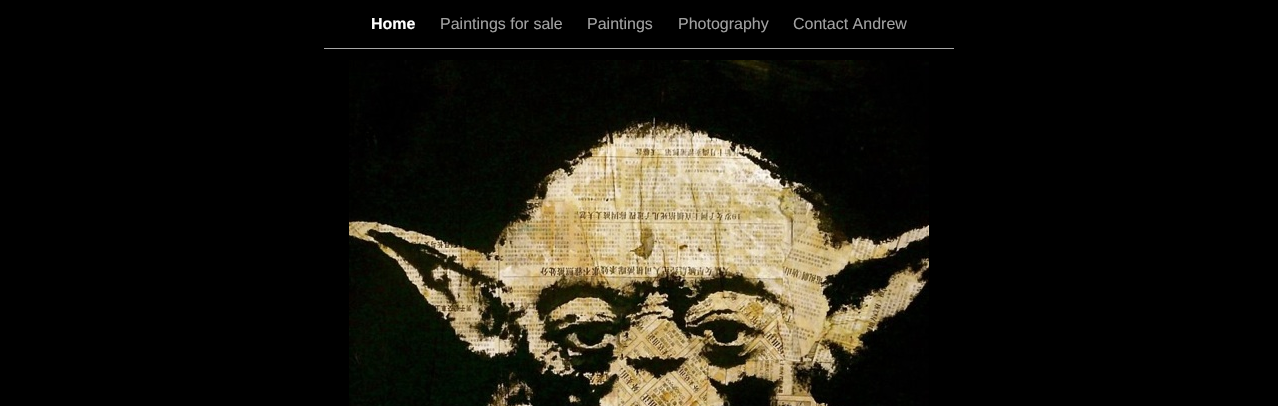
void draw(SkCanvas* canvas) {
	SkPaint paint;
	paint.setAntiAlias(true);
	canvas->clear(0xff000000);
	SkFont f1(fontMgr->matchFamilyStyle("Liberation Sans", SkFontStyle::Bold()), 16);
	f1.setSubpixel(true);
	paint.setColor(0xffffffff);
	canvas->drawString("Home", 371, 29, f1, paint);
	SkFont f2(fontMgr->matchFamilyStyle("Liberation Sans", SkFontStyle::Normal()), 16);
	f2.setSubpixel(true);
	paint.setColor(0xffa1a1a1);
	canvas->drawString("Paintings for sale", 440, 29, f2, paint);
	canvas->drawString("Paintings", 587, 29, f2, paint);
	canvas->drawString("Photography", 678, 29, f2, paint);
	canvas->drawString("Contact Andrew", 793, 29, f2, paint);
	paint.setColor(0xffa7a7a7);
	canvas->drawRect(SkRect::MakeXYWH(324, 48, 630, 1), paint);
	canvas->drawImageRect(SkImages::DeferredFromEncodedData(SkData::MakeFromFileName("img1.png")), SkRect::MakeXYWH(349, 60, 580, 346), SkSamplingOptions());
}
